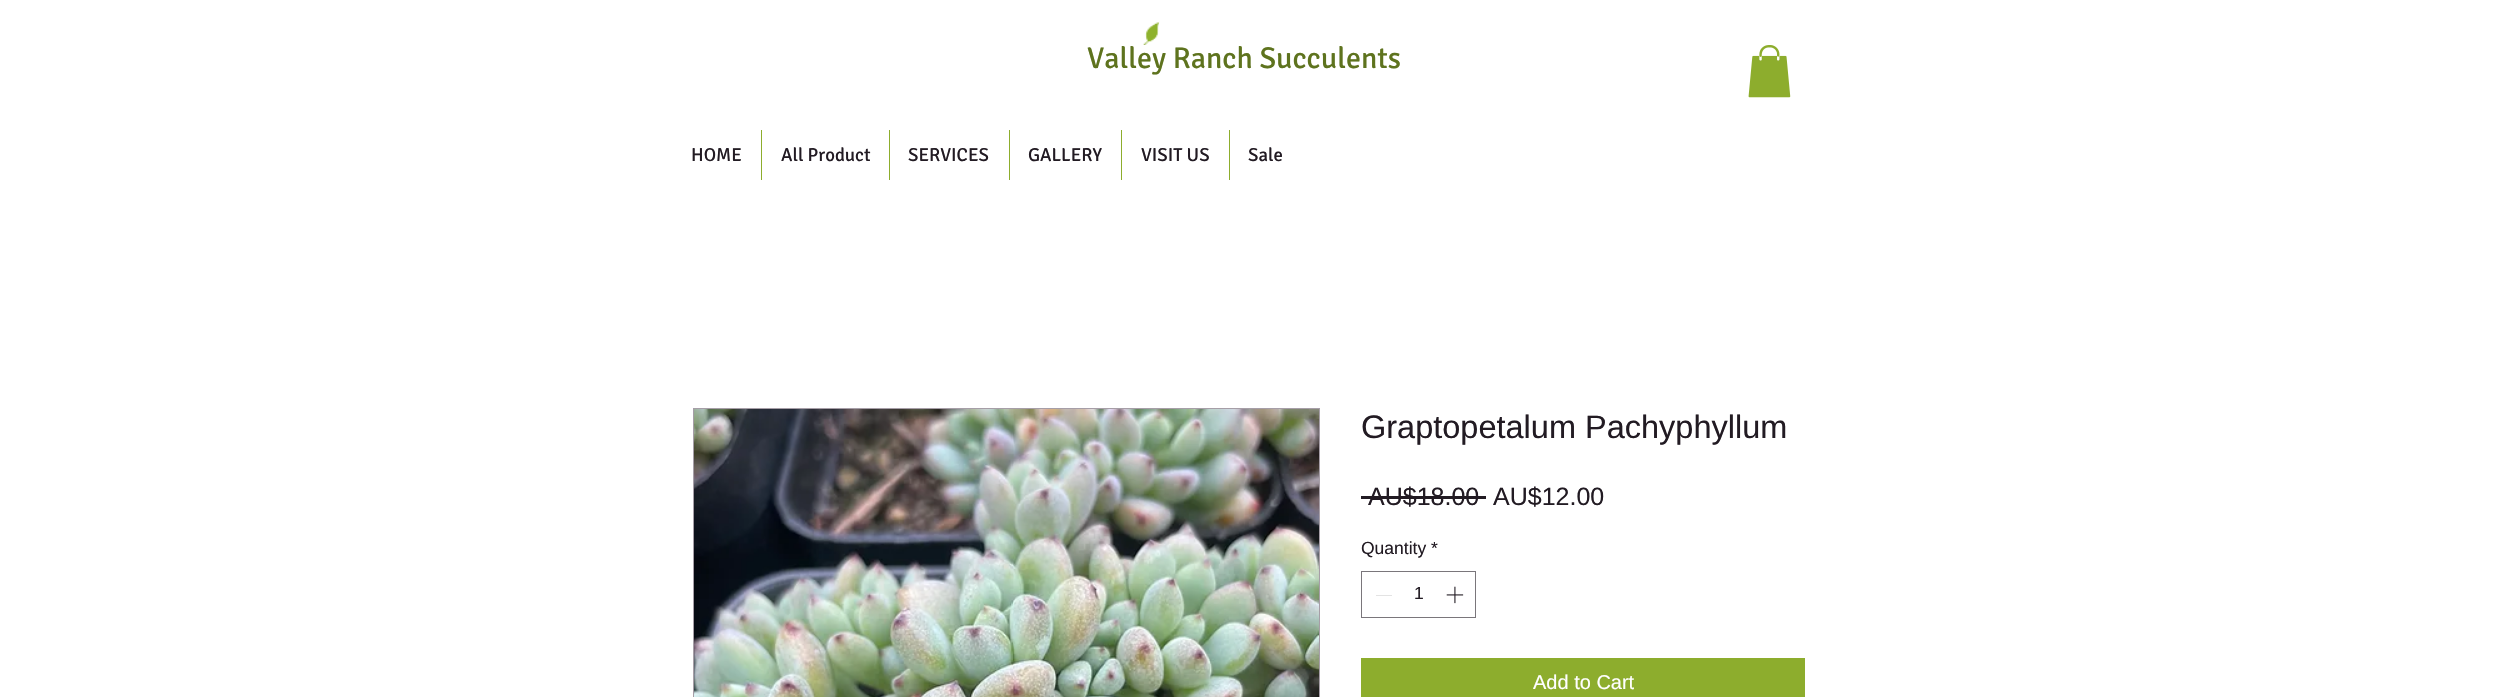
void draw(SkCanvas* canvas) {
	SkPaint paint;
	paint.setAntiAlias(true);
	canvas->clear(0xffffffff);
	canvas->drawImageRect(SkImages::DeferredFromEncodedData(SkData::MakeFromFileName("img1.png")), SkRect::MakeXYWH(1143, 21, 17, 24), SkSamplingOptions());
	SkFont f1(fontMgr->matchFamilyStyle("Signika", SkFontStyle::Normal()), 30);
	f1.setSubpixel(true);
	paint.setColor(0xff5e731e);
	canvas->drawString("Valley Ranch Succulents", 1087, 68, f1, paint);
	canvas->drawImageRect(SkImages::DeferredFromEncodedData(SkData::MakeFromFileName("img2.png")), SkRect::MakeXYWH(1748, 45, 43, 53), SkSamplingOptions());
	SkFont f2(fontMgr->matchFamilyStyle("Signika", SkFontStyle::Normal()), 18.75);
	f2.setSubpixel(true);
	paint.setColor(0xff221b23);
	canvas->drawString("HOME", 691, 161, f2, paint);
	paint.setColor(0xff8dad2d);
	canvas->drawRect(SkRect::MakeXYWH(761, 130, 1, 50), paint);
	paint.setColor(0xff221b23);
	canvas->drawString("All Product", 781, 161, f2, paint);
	paint.setColor(0xff8dad2d);
	canvas->drawRect(SkRect::MakeXYWH(889, 130, 1, 50), paint);
	paint.setColor(0xff221b23);
	canvas->drawString("SERVICES", 908, 161, f2, paint);
	paint.setColor(0xff8dad2d);
	canvas->drawRect(SkRect::MakeXYWH(1009, 130, 1, 50), paint);
	paint.setColor(0xff221b23);
	canvas->drawString("GALLERY", 1028, 161, f2, paint);
	paint.setColor(0xff8dad2d);
	canvas->drawRect(SkRect::MakeXYWH(1121, 130, 1, 50), paint);
	paint.setColor(0xff221b23);
	canvas->drawString("VISIT US", 1141, 161, f2, paint);
	paint.setColor(0xff8dad2d);
	canvas->drawRect(SkRect::MakeXYWH(1229, 130, 1, 50), paint);
	paint.setColor(0xff221b23);
	canvas->drawString("Sale", 1248, 161, f2, paint);
	paint.setStroke(true);
	paint.setStrokeWidth(1);
	paint.setColor(0xffa69ea7);
	canvas->drawRect(SkRect::MakeXYWH(693.5, 408.5, 626, 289), paint);
	canvas->drawImageRect(SkImages::DeferredFromEncodedData(SkData::MakeFromFileName("img3.png")), SkRect::MakeXYWH(694, 409, 625, 288), SkSamplingOptions());
	SkFont f3(fontMgr->matchFamilyStyle("Liberation Sans", SkFontStyle::Normal()), 32.5);
	f3.setSubpixel(true);
	paint.setStroke(false);
	paint.setColor(0xff221b23);
	canvas->drawString("Graptopetalum Pachyphyllum", 1361, 438, f3, paint);
	SkFont f4(fontMgr->matchFamilyStyle("Liberation Sans", SkFontStyle::Normal()), 25);
	f4.setSubpixel(true);
	canvas->drawString("AU$18.00", 1368, 505, f4, paint);
	canvas->drawRect(SkRect::MakeXYWH(1361, 496, 125, 3), paint);
	canvas->drawString("AU$12.00", 1493, 505, f4, paint);
	SkFont f5(fontMgr->matchFamilyStyle("Liberation Sans", SkFontStyle::Normal()), 17.5);
	f5.setSubpixel(true);
	canvas->drawString("Quantity *", 1361, 554, f5, paint);
	paint.setStroke(true);
	paint.setColor(0xff7a767b);
	canvas->drawRect(SkRect::MakeXYWH(1361.5, 571.5, 114, 46), paint);
	paint.setStroke(false);
	paint.setColor(0xffe3e3e3);
	canvas->drawRect(SkRect::MakeXYWH(1376, 595, 16, 1), paint);
	paint.setColor(0xff221b23);
	canvas->drawString("1", 1414, 599, f5, paint);
	canvas->drawImageRect(SkImages::DeferredFromEncodedData(SkData::MakeFromFileName("img4.png")), SkRect::MakeXYWH(1446, 586, 18, 18), SkSamplingOptions());
	paint.setColor(0xff8dad2d);
	canvas->drawRect(SkRect::MakeXYWH(1361, 658, 444, 39), paint);
	SkFont f6(fontMgr->matchFamilyStyle("Liberation Sans", SkFontStyle::Normal()), 20);
	f6.setSubpixel(true);
	paint.setColor(0xffffffff);
	canvas->drawString("Add to Cart", 1533, 689, f6, paint);
}
